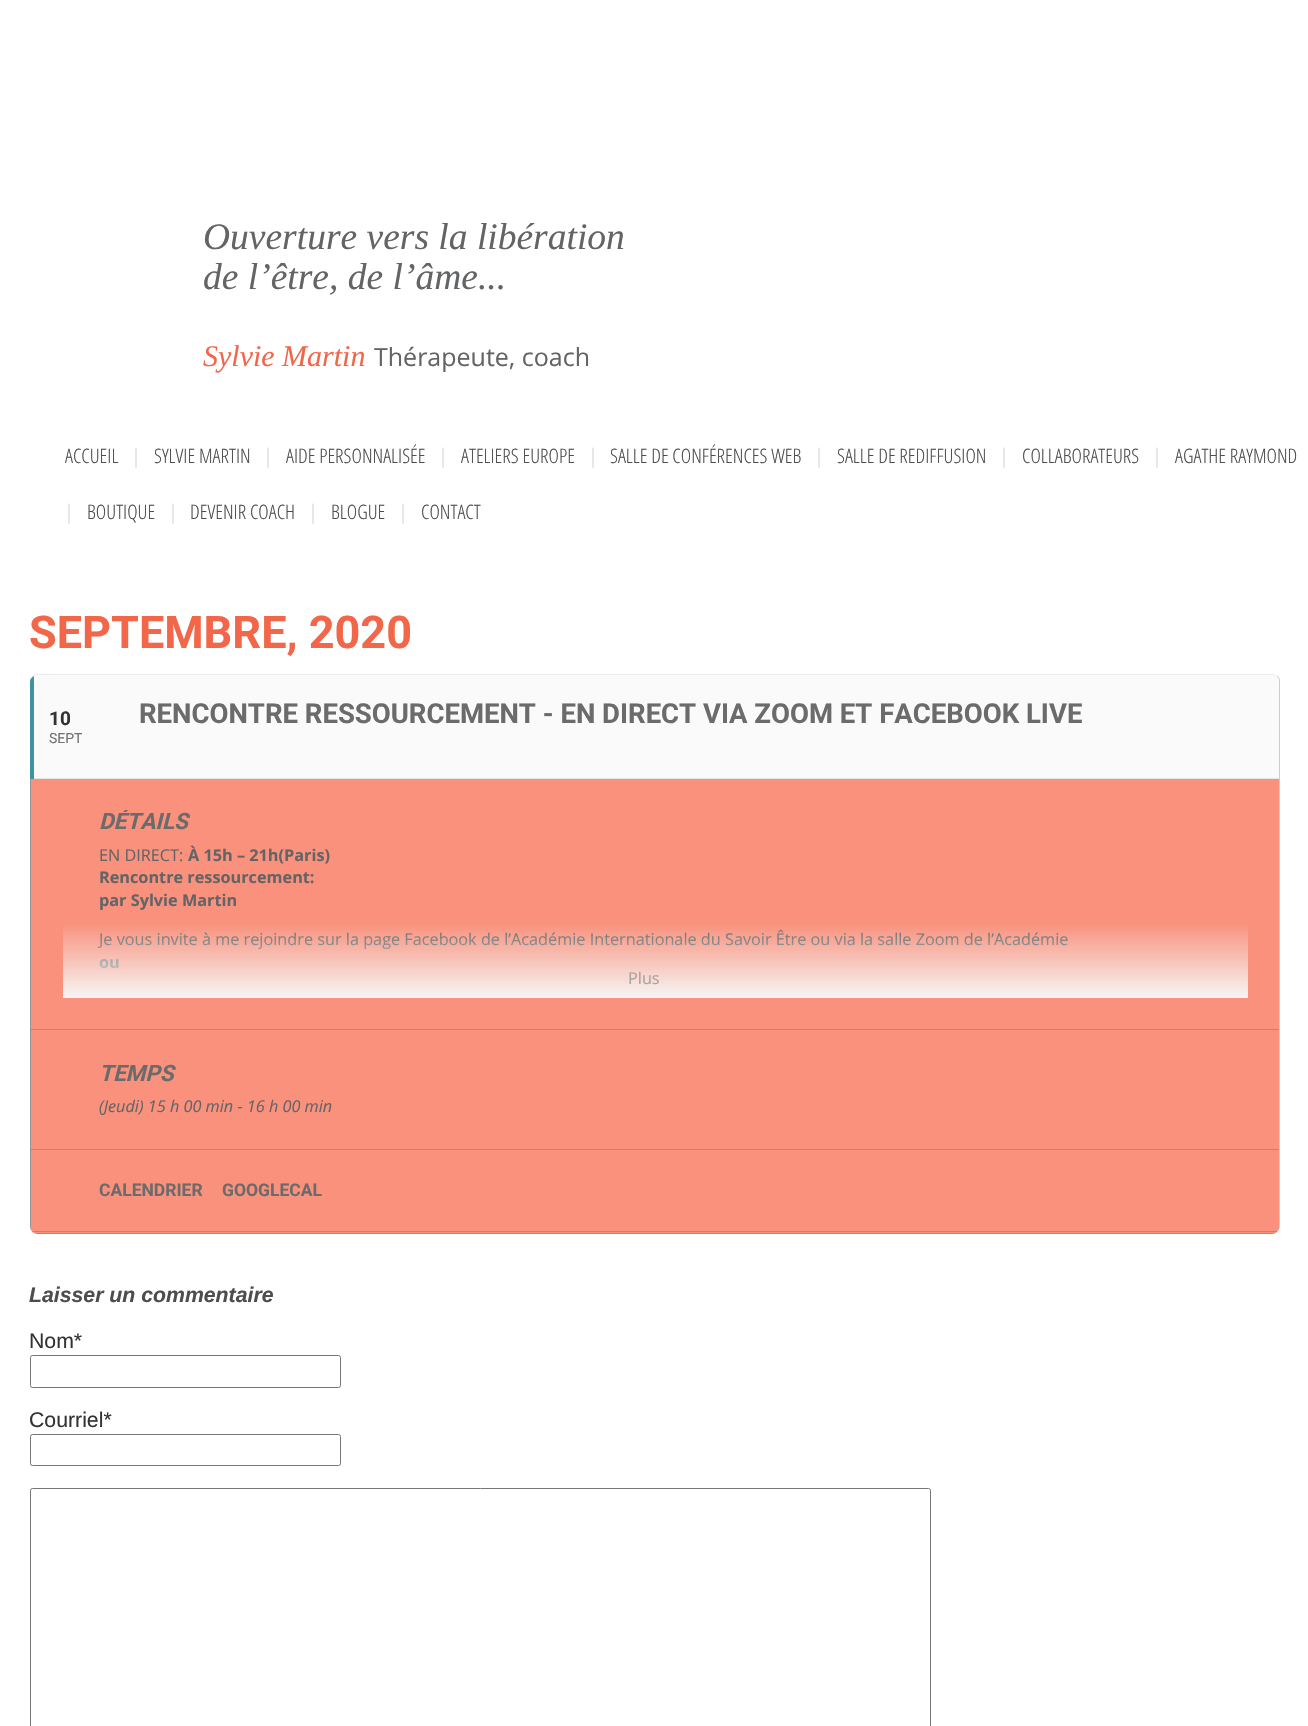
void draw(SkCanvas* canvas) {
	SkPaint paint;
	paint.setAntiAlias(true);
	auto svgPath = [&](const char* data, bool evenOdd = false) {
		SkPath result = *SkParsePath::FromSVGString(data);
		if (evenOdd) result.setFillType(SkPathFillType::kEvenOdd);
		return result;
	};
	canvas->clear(0xffffffff);
	SkFont f1(fontMgr->matchFamilyStyle("Liberation Serif", SkFontStyle::Italic()), 37.5);
	f1.setSubpixel(true);
	paint.setColor(0xff636466);
	canvas->drawString("Ouverture vers la libération", 203, 249, f1, paint);
	canvas->drawString("de l’être, de l’âme...", 203, 289, f1, paint);
	SkFont f2(fontMgr->matchFamilyStyle("Liberation Serif", SkFontStyle::Italic()), 30);
	f2.setSubpixel(true);
	paint.setColor(0xfff26649);
	canvas->drawString("Sylvie Martin", 203, 366, f2, paint);
	SkFont f3(fontMgr->matchFamilyStyle("Open Sans", SkFontStyle::Normal()), 25);
	f3.setSubpixel(true);
	paint.setColor(0xff636466);
	canvas->drawString("Thérapeute, coach", 374, 366, f3, paint);
	SkFont f4(fontMgr->matchFamilyStyle("Open Sans Condensed", SkFontStyle(300, SkFontStyle::kNormal_Width, SkFontStyle::kUpright_Slant)), 20);
	f4.setSubpixel(true);
	paint.setColor(0xff4d4d4f);
	canvas->drawString("ACCUEIL", 65, 463, f4, paint);
	paint.setColor(0xffd6d6d8);
	canvas->drawString("|", 132, 463, f4, paint);
	paint.setColor(0xff4d4d4f);
	canvas->drawString("SYLVIE MARTIN", 154, 463, f4, paint);
	paint.setColor(0xffd6d6d8);
	canvas->drawString("|", 264, 463, f4, paint);
	paint.setColor(0xff4d4d4f);
	canvas->drawString("AIDE PERSONNALISÉE", 286, 463, f4, paint);
	paint.setColor(0xffd6d6d8);
	canvas->drawString("|", 439, 463, f4, paint);
	paint.setColor(0xff4d4d4f);
	canvas->drawString("ATELIERS EUROPE", 461, 463, f4, paint);
	paint.setColor(0xffd6d6d8);
	canvas->drawString("|", 589, 463, f4, paint);
	paint.setColor(0xff4d4d4f);
	canvas->drawString("SALLE DE CONFÉRENCES WEB", 610, 463, f4, paint);
	paint.setColor(0xffd6d6d8);
	canvas->drawString("|", 815, 463, f4, paint);
	paint.setColor(0xff4d4d4f);
	canvas->drawString("SALLE DE REDIFFUSION", 837, 463, f4, paint);
	paint.setColor(0xffd6d6d8);
	canvas->drawString("|", 1000, 463, f4, paint);
	paint.setColor(0xff4d4d4f);
	canvas->drawString("COLLABORATEURS", 1022, 463, f4, paint);
	paint.setColor(0xffd6d6d8);
	canvas->drawString("|", 1153, 463, f4, paint);
	paint.setColor(0xff4d4d4f);
	canvas->drawString("AGATHE RAYMOND", 1175, 463, f4, paint);
	paint.setColor(0xffd6d6d8);
	canvas->drawString("|", 65, 519, f4, paint);
	paint.setColor(0xff4d4d4f);
	canvas->drawString("BOUTIQUE", 87, 519, f4, paint);
	paint.setColor(0xffd6d6d8);
	canvas->drawString("|", 169, 519, f4, paint);
	paint.setColor(0xff4d4d4f);
	canvas->drawString("DEVENIR COACH", 190, 519, f4, paint);
	paint.setColor(0xffd6d6d8);
	canvas->drawString("|", 309, 519, f4, paint);
	paint.setColor(0xff4d4d4f);
	canvas->drawString("BLOGUE", 331, 519, f4, paint);
	paint.setColor(0xffd6d6d8);
	canvas->drawString("|", 399, 519, f4, paint);
	paint.setColor(0xff4d4d4f);
	canvas->drawString("CONTACT", 421, 519, f4, paint);
	SkFont f5(fontMgr->matchFamilyStyle("Roboto", SkFontStyle::Bold()), 45);
	f5.setSubpixel(true);
	paint.setColor(0xfff26649);
	canvas->drawString("SEPTEMBRE, 2020", 29, 648, f5, paint);
	paint.setColor(0xffefeeee);
	canvas->drawPath(svgPath("M38 674H1272C1274 674 1276 675 1278 676L1277 677C1276 676 1274 675 1272 675H38C33 675 30 678 30 681C30 677 33 674 38 674Z"), paint);
	paint.setColor(0xffcdcdcd);
	canvas->drawPath(svgPath("M1274 1234C1277 1233 1279 1229 1279 1226V681C1279 679 1278 678 1277 677L1278 676C1279 677 1280 679 1280 681V1226C1280 1229 1278 1233 1274 1234Z"), paint);
	paint.setColor(0xfffafafa);
	canvas->drawPath(svgPath("M38 675C33 675 30 678 30 681V779H1279V681C1279 678 1276 675 1272 675Z"), paint);
	paint.setColor(0xff3f92a1);
	canvas->drawPath(svgPath("M34 676C32 677 30 679 30 681V779H34Z"), paint);
	SkFont f6(fontMgr->matchFamilyStyle("Roboto", SkFontStyle::Bold()), 19);
	f6.setSubpixel(true);
	paint.setColor(0xff333333);
	canvas->drawString("10", 49, 725, f6, paint);
	SkFont f7(fontMgr->matchFamilyStyle("Roboto", SkFontStyle::Normal()), 14);
	f7.setSubpixel(true);
	paint.setColor(0xff737373);
	canvas->drawString("SEPT", 49, 743, f7, paint);
	SkFont f8(fontMgr->matchFamilyStyle("Roboto", SkFontStyle::Bold()), 27.5);
	f8.setSubpixel(true);
	paint.setColor(0xff6b6b6b);
	canvas->drawString("RENCONTRE RESSOURCEMENT - EN DIRECT VIA ZOOM ET FACEBOOK LIVE", 139, 723, f8, paint);
	paint.setColor(0xffe5e5e5);
	canvas->drawRect(SkRect::MakeXYWH(34, 778, 1245, 1), paint);
	paint.setColor(0xfff9917c);
	canvas->drawPath(svgPath("M30 779V1226C30 1230 33 1234 38 1234H1272C1276 1234 1279 1230 1279 1226V779Z"), paint);
	paint.setColor(0xff949494);
	canvas->drawPath(svgPath("M1275 1233L1272 1234H38L34 1233Z"), paint);
	canvas->drawPath(svgPath("M30 779V1226L31 1230V779Z"), paint);
	canvas->drawRect(SkRect::MakeXYWH(31, 1029, 1248, 1), paint);
	canvas->save();
	canvas->clipRect(SkRect::MakeXYWH(63, 810, 1185, 188));
	SkFont f9(fontMgr->matchFamilyStyle("Roboto", SkFontStyle::BoldItalic()), 22.5);
	f9.setSubpixel(true);
	paint.setColor(0xff6b6b6b);
	canvas->drawString("DÉTAILS", 99, 829, f9, paint);
	canvas->restore();
	SkFont f10(fontMgr->matchFamilyStyle("Open Sans", SkFontStyle::Normal()), 16.25);
	f10.setSubpixel(true);
	paint.setColor(0xff636466);
	canvas->drawString("EN DIRECT:", 99, 861, f10, paint);
	SkFont f11(fontMgr->matchFamilyStyle("Open Sans", SkFontStyle::Bold()), 16.25);
	f11.setSubpixel(true);
	canvas->drawString("À 15h – 21h(Paris)", 188, 861, f11, paint);
	canvas->drawString("Rencontre ressourcement:", 99, 883, f11, paint);
	canvas->drawString("par Sylvie Martin", 99, 906, f11, paint);
	canvas->drawString("Je vous invite à me rejoindre sur la page Facebook de l’Académie Internationale du Savoir Être ou via la salle Zoom de l’Académie", 99, 945, f10, paint);
	canvas->drawString("ou", 99, 968, f11, paint);
	{
		const SkColor colors[] = {0x00f5f5f5, 0x03f5f5f5, 0xfff5f5f5};
		const float stops[] = {0, 0.01, 1};
		const SkPoint ends[] = {{655, 923}, {655, 998}};
		paint.setShader(SkGradientShader::MakeLinear(ends, colors, stops, 3, SkTileMode::kClamp));
		paint.setAlpha(255);
	}
	canvas->drawRect(SkRect::MakeXYWH(63, 925, 1185, 73), paint);
	paint.setShader(nullptr);
	paint.setColor(0xffaca09d);
	canvas->drawString("Plus", 628, 984, f10, paint);
	paint.setColor(0xff949494);
	canvas->drawRect(SkRect::MakeXYWH(31, 1149, 1248, 1), paint);
	paint.setColor(0xff6b6b6b);
	canvas->drawString("TEMPS", 99, 1081, f9, paint);
	SkFont f12(fontMgr->matchFamilyStyle("Open Sans", SkFontStyle::Italic()), 16.25);
	f12.setSubpixel(true);
	paint.setColor(0xff636466);
	canvas->drawString("(Jeudi) 15 h 00 min - 16 h 00 min", 99, 1112, f12, paint);
	paint.setColor(0xfff9917c);
	canvas->drawPath(svgPath("M31 1150H1279V1226C1279 1229 1277 1232 1275 1233H34L31 1230Z"), paint);
	paint.setColor(0xff949494);
	canvas->drawPath(svgPath("M33 1232L32 1231H1277V1232Z"), paint);
	SkFont f13(fontMgr->matchFamilyStyle("Roboto", SkFontStyle::Bold()), 17.5);
	f13.setSubpixel(true);
	paint.setColor(0xff6b6b6b);
	canvas->drawString("CALENDRIER", 99, 1196, f13, paint);
	canvas->drawString("GOOGLECAL", 222, 1196, f13, paint);
	SkFont f14(fontMgr->matchFamilyStyle("Liberation Sans", SkFontStyle::BoldItalic()), 21.25);
	f14.setSubpixel(true);
	paint.setColor(0xff4d4d4f);
	canvas->drawString("Laisser un commentaire", 29, 1302, f14, paint);
	SkFont f15(fontMgr->matchFamilyStyle("Liberation Sans", SkFontStyle::Normal()), 21.25);
	f15.setSubpixel(true);
	paint.setColor(0xff333333);
	canvas->drawString("Nom*", 29, 1348, f15, paint);
	paint.setStroke(true);
	paint.setStrokeWidth(1);
	paint.setColor(0xff767676);
	canvas->drawRoundRect(SkRect::MakeXYWH(30.5, 1355.5, 310, 32), 2, 2, paint);
	paint.setStroke(false);
	paint.setColor(0xff333333);
	canvas->drawString("Courriel*", 29, 1427, f15, paint);
	paint.setStroke(true);
	paint.setColor(0xff767676);
	canvas->drawRoundRect(SkRect::MakeXYWH(30.5, 1434.5, 310, 31), 2, 2, paint);
	canvas->drawRoundRect(SkRect::MakeXYWH(30.5, 1488.5, 900, 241), 2, 2, paint);
}
